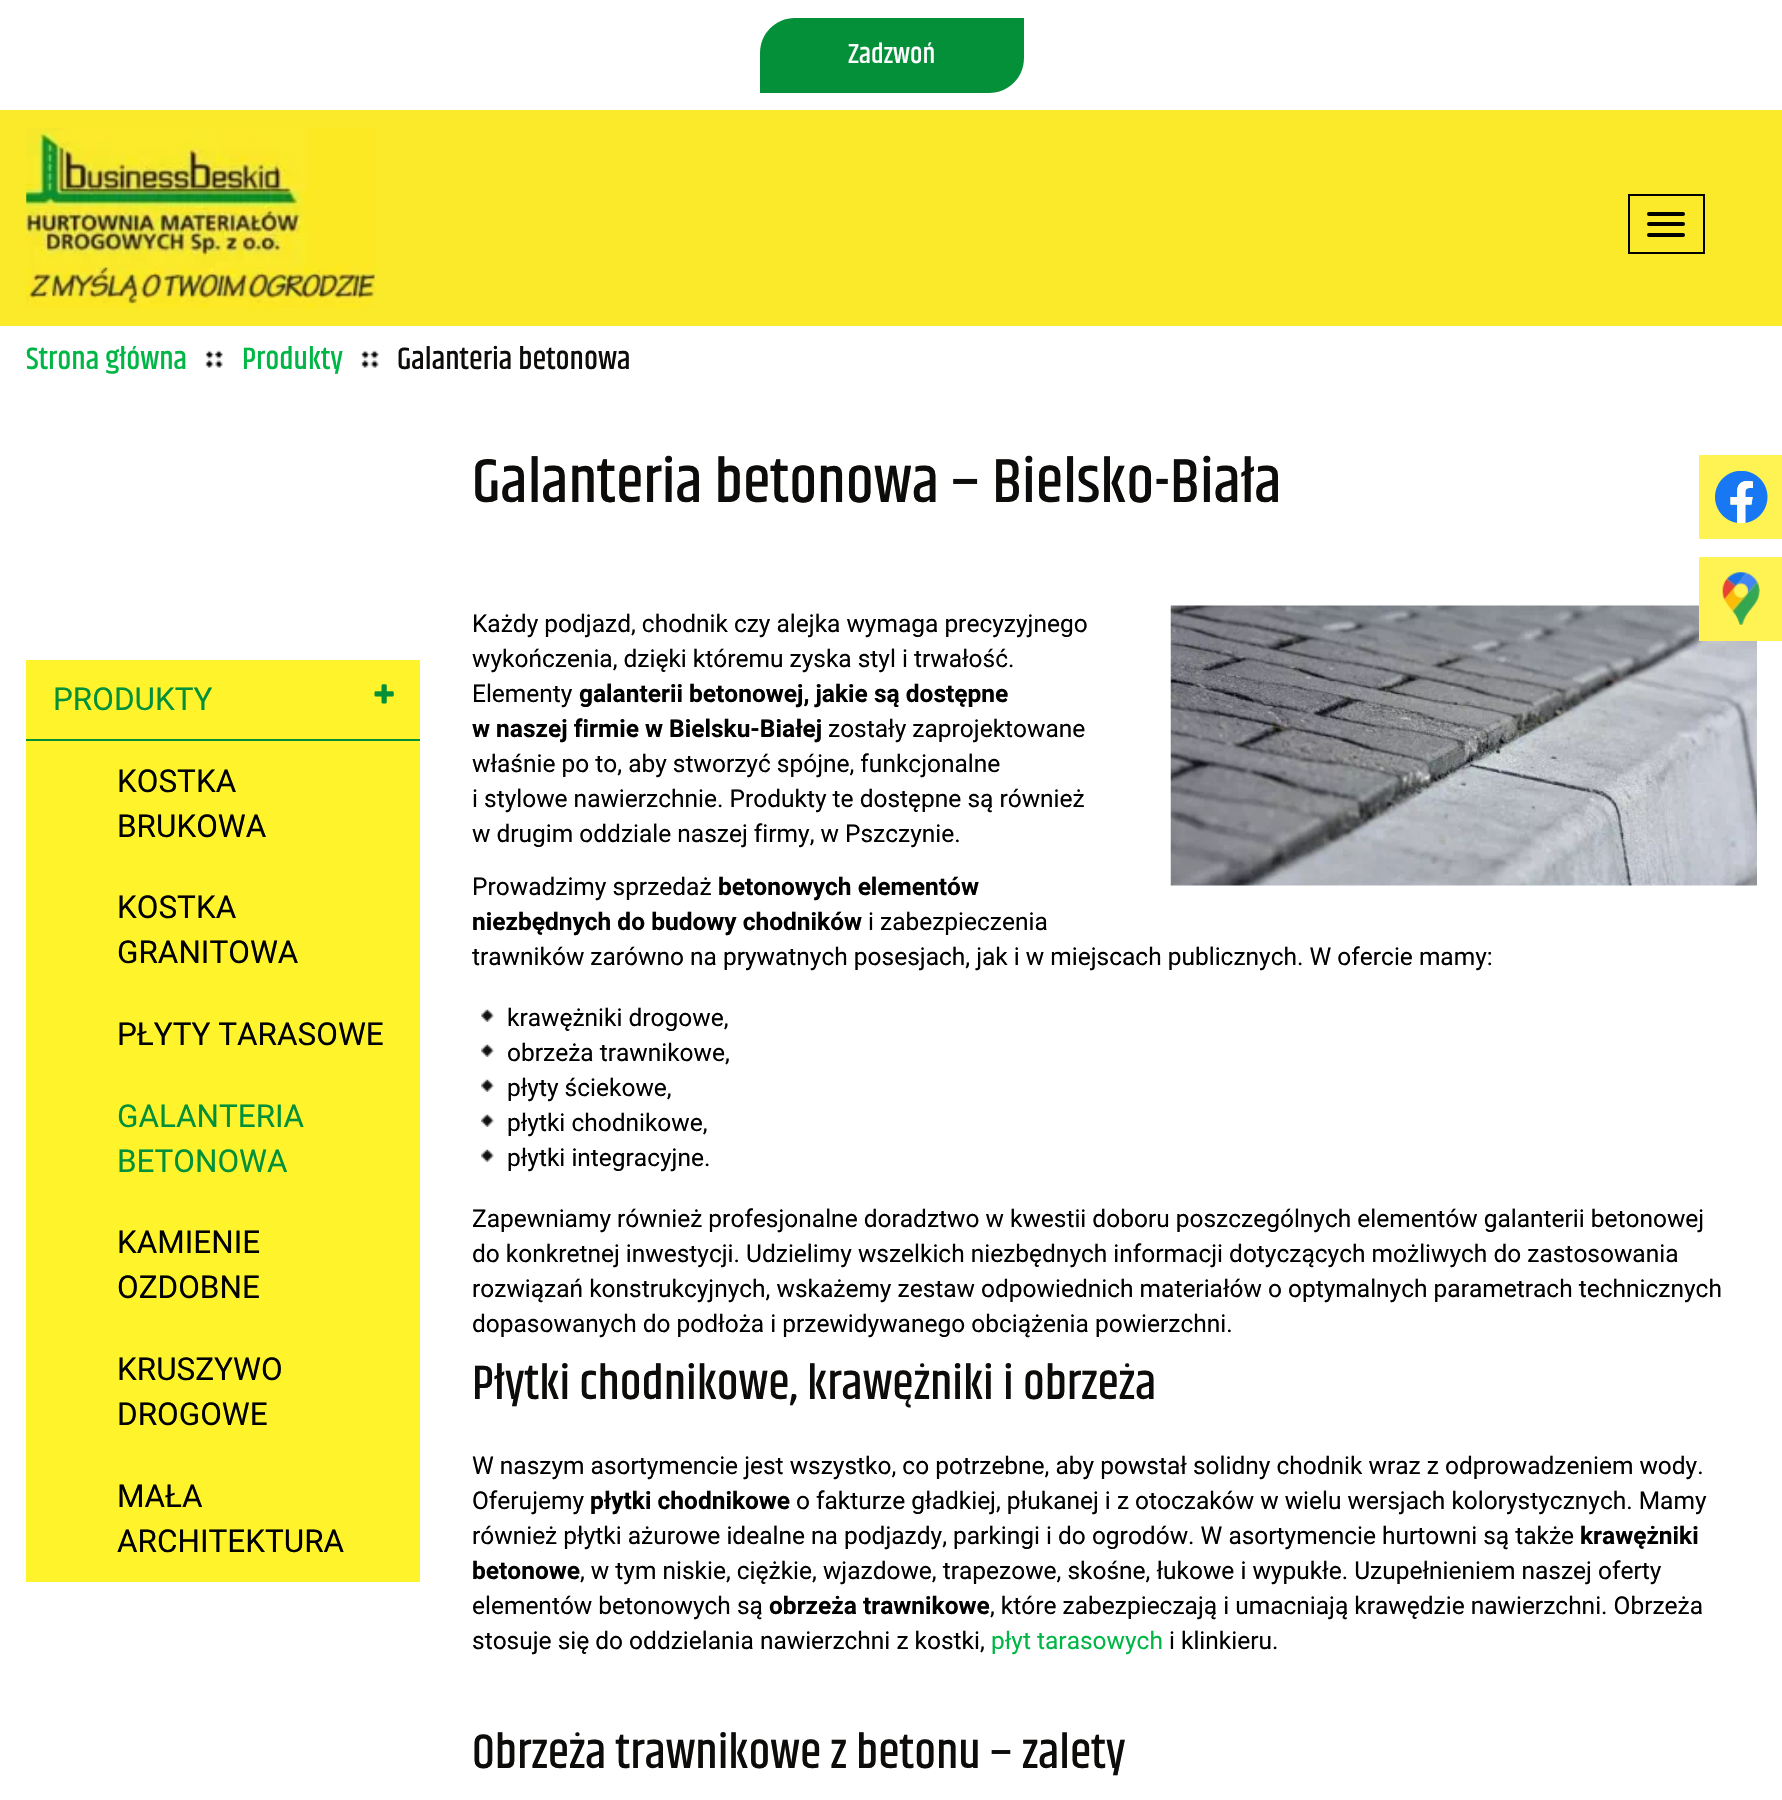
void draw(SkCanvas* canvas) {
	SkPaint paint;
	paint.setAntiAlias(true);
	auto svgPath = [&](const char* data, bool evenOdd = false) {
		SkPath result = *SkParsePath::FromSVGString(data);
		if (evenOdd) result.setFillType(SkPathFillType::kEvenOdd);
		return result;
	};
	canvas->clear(0xffffffff);
	paint.setColor(0xff049039);
	canvas->drawPath(svgPath("M795 18H1024V58C1024 77.5 1008.5 93 989 93H760V53C760 33.5 775.5 18 795 18Z"), paint);
	SkFont f1(fontMgr->matchFamilyStyle("Khand", SkFontStyle(500, SkFontStyle::kNormal_Width, SkFontStyle::kUpright_Slant)), 28);
	f1.setSubpixel(true);
	paint.setColor(0xfffcfcfc);
	canvas->drawString("Zadzwoń", 848, 63, f1, paint);
	paint.setColor(0xfffaea2a);
	canvas->drawRect(SkRect::MakeXYWH(0, 110, 1782, 216), paint);
	canvas->drawImageRect(SkImages::DeferredFromEncodedData(SkData::MakeFromFileName("img1.png")), SkRect::MakeXYWH(26, 128, 351, 180), SkSamplingOptions());
	paint.setStroke(true);
	paint.setStrokeWidth(2);
	paint.setColor(0xff000000);
	canvas->drawRect(SkRect::MakeXYWH(1629, 195, 75, 58), paint);
	paint.setStroke(false);
	canvas->drawRoundRect(SkRect::MakeXYWH(1647, 212, 38, 4), 2, 2, paint);
	canvas->drawRoundRect(SkRect::MakeXYWH(1647, 222, 38, 4), 2, 2, paint);
	canvas->drawRoundRect(SkRect::MakeXYWH(1647, 233, 38, 4), 2, 2, paint);
	SkFont f2(fontMgr->matchFamilyStyle("Khand", SkFontStyle(500, SkFontStyle::kNormal_Width, SkFontStyle::kUpright_Slant)), 31.5);
	f2.setSubpixel(true);
	paint.setColor(0xff00b745);
	canvas->drawString("Strona główna", 26, 369, f2, paint);
	canvas->drawImageRect(SkImages::DeferredFromEncodedData(SkData::MakeFromFileName("img2.png")), SkRect::MakeXYWH(205, 350, 18, 18), SkSamplingOptions());
	canvas->drawString("Produkty", 242, 369, f2, paint);
	canvas->drawImageRect(SkImages::DeferredFromEncodedData(SkData::MakeFromFileName("img3.png")), SkRect::MakeXYWH(360, 350, 19, 18), SkSamplingOptions());
	paint.setColor(0xff0d0c0a);
	canvas->drawString("Galanteria betonowa", 397, 369, f2, paint);
	paint.setColor(0xfffff42b);
	canvas->drawRect(SkRect::MakeXYWH(26, 660, 394, 922), paint);
	paint.setColor(0xff049039);
	canvas->drawRect(SkRect::MakeXYWH(26, 739, 394, 2), paint);
	SkFont f3(fontMgr->matchFamilyStyle("Roboto", SkFontStyle::Normal()), 31.5);
	f3.setSubpixel(true);
	canvas->drawString("PRODUKTY", 53, 710, f3, paint);
	canvas->drawImageRect(SkImages::DeferredFromEncodedData(SkData::MakeFromFileName("img4.png")), SkRect::MakeXYWH(374, 684, 20, 20), SkSamplingOptions());
	paint.setColor(0xff000000);
	canvas->drawString("KOSTKA", 117, 792, f3, paint);
	canvas->drawString("BRUKOWA", 117, 837, f3, paint);
	canvas->drawString("KOSTKA", 117, 918, f3, paint);
	canvas->drawString("GRANITOWA", 117, 963, f3, paint);
	canvas->drawString("PŁYTY TARASOWE", 117, 1045, f3, paint);
	paint.setColor(0xff049039);
	canvas->drawString("GALANTERIA", 117, 1127, f3, paint);
	canvas->drawString("BETONOWA", 117, 1172, f3, paint);
	paint.setColor(0xff000000);
	canvas->drawString("KAMIENIE", 117, 1253, f3, paint);
	canvas->drawString("OZDOBNE", 117, 1298, f3, paint);
	canvas->drawString("KRUSZYWO", 117, 1380, f3, paint);
	canvas->drawString("DROGOWE", 117, 1425, f3, paint);
	canvas->drawString("MAŁA", 117, 1507, f3, paint);
	canvas->drawString("ARCHITEKTURA", 117, 1552, f3, paint);
	SkFont f4(fontMgr->matchFamilyStyle("Khand", SkFontStyle(500, SkFontStyle::kNormal_Width, SkFontStyle::kUpright_Slant)), 63);
	f4.setSubpixel(true);
	paint.setColor(0xff0d0c0a);
	canvas->drawString("Galanteria betonowa – Bielsko-Biała", 472, 502, f4, paint);
	SkFont f5(fontMgr->matchFamilyStyle("Roboto", SkFontStyle::Normal()), 24.5);
	f5.setSubpixel(true);
	paint.setColor(0xff000000);
	canvas->drawString("Każdy podjazd, chodnik czy alejka wymaga precyzyjnego", 472, 632, f5, paint);
	canvas->drawString("wykończenia, dzięki któremu zyska styl i trwałość.", 472, 667, f5, paint);
	canvas->drawString("Elementy", 472, 702, f5, paint);
	SkFont f6(fontMgr->matchFamilyStyle("Roboto", SkFontStyle::Bold()), 24.5);
	f6.setSubpixel(true);
	canvas->drawString("galanterii betonowej, jakie są dostępne", 579, 702, f6, paint);
	canvas->drawString("w naszej firmie w Bielsku-Białej", 472, 737, f6, paint);
	canvas->drawString("zostały zaprojektowane", 828, 737, f5, paint);
	canvas->drawString("właśnie po to, aby stworzyć spójne, funkcjonalne", 472, 772, f5, paint);
	canvas->drawString("i stylowe nawierzchnie. Produkty te dostępne są również", 472, 807, f5, paint);
	canvas->drawString("w drugim oddziale naszej firmy, w Pszczynie.", 472, 842, f5, paint);
	canvas->drawImageRect(SkImages::DeferredFromEncodedData(SkData::MakeFromFileName("img5.png")), SkRect::MakeXYWH(1170, 605, 587, 281), SkSamplingOptions());
	canvas->drawString("Prowadzimy sprzedaż", 472, 895, f5, paint);
	canvas->drawString("betonowych elementów", 718, 895, f6, paint);
	canvas->drawString("niezbędnych do budowy chodników", 472, 930, f6, paint);
	canvas->drawString("i zabezpieczenia", 868, 930, f5, paint);
	canvas->drawString("trawników zarówno na prywatnych posesjach, jak i w miejscach publicznych. W ofercie mamy:", 472, 965, f5, paint);
	canvas->drawImageRect(SkImages::DeferredFromEncodedData(SkData::MakeFromFileName("img6.png")), SkRect::MakeXYWH(481, 1009, 13, 13), SkSamplingOptions());
	canvas->drawString("krawężniki drogowe,", 507, 1026, f5, paint);
	canvas->drawImageRect(SkImages::DeferredFromEncodedData(SkData::MakeFromFileName("img6.png")), SkRect::MakeXYWH(481, 1044, 13, 13), SkSamplingOptions());
	canvas->drawString("obrzeża trawnikowe,", 507, 1061, f5, paint);
	canvas->drawImageRect(SkImages::DeferredFromEncodedData(SkData::MakeFromFileName("img6.png")), SkRect::MakeXYWH(481, 1079, 13, 13), SkSamplingOptions());
	canvas->drawString("płyty ściekowe,", 507, 1096, f5, paint);
	canvas->drawImageRect(SkImages::DeferredFromEncodedData(SkData::MakeFromFileName("img6.png")), SkRect::MakeXYWH(481, 1114, 13, 13), SkSamplingOptions());
	canvas->drawString("płytki chodnikowe,", 507, 1131, f5, paint);
	canvas->drawImageRect(SkImages::DeferredFromEncodedData(SkData::MakeFromFileName("img6.png")), SkRect::MakeXYWH(481, 1149, 13, 13), SkSamplingOptions());
	canvas->drawString("płytki integracyjne.", 507, 1166, f5, paint);
	canvas->drawString("Zapewniamy również profesjonalne doradztwo w kwestii doboru poszczególnych elementów galanterii betonowej", 472, 1227, f5, paint);
	canvas->drawString("do konkretnej inwestycji. Udzielimy wszelkich niezbędnych informacji dotyczących możliwych do zastosowania", 472, 1262, f5, paint);
	canvas->drawString("rozwiązań konstrukcyjnych, wskażemy zestaw odpowiednich materiałów o optymalnych parametrach technicznych", 472, 1297, f5, paint);
	canvas->drawString("dopasowanych do podłoża i przewidywanego obciążenia powierzchni.", 472, 1332, f5, paint);
	SkFont f7(fontMgr->matchFamilyStyle("Khand", SkFontStyle(500, SkFontStyle::kNormal_Width, SkFontStyle::kUpright_Slant)), 49);
	f7.setSubpixel(true);
	paint.setColor(0xff0d0c0a);
	canvas->drawString("Płytki chodnikowe, krawężniki i obrzeża", 472, 1399, f7, paint);
	paint.setColor(0xff000000);
	canvas->drawString("W naszym asortymencie jest wszystko, co potrzebne, aby powstał solidny chodnik wraz z odprowadzeniem wody.", 472, 1474, f5, paint);
	canvas->drawString("Oferujemy", 472, 1509, f5, paint);
	canvas->drawString("płytki chodnikowe", 590, 1509, f6, paint);
	canvas->drawString("o fakturze gładkiej, płukanej i z otoczaków w wielu wersjach kolorystycznych. Mamy", 796, 1509, f5, paint);
	canvas->drawString("również płytki ażurowe idealne na podjazdy, parkingi i do ogrodów. W asortymencie hurtowni są także", 472, 1544, f5, paint);
	canvas->drawString("krawężniki", 1580, 1544, f6, paint);
	canvas->drawString("betonowe", 472, 1579, f6, paint);
	canvas->drawString(", w tym niskie, ciężkie, wjazdowe, trapezowe, skośne, łukowe i wypukłe. Uzupełnieniem naszej oferty", 580, 1579, f5, paint);
	canvas->drawString("elementów betonowych są", 472, 1614, f5, paint);
	canvas->drawString("obrzeża trawnikowe", 769, 1614, f6, paint);
	canvas->drawString(", które zabezpieczają i umacniają krawędzie nawierzchni. Obrzeża", 990, 1614, f5, paint);
	canvas->drawString("stosuje się do oddzielania nawierzchni z kostki,", 472, 1649, f5, paint);
	paint.setColor(0xff00b745);
	canvas->drawString("płyt tarasowych", 991, 1649, f5, paint);
	paint.setColor(0xff000000);
	canvas->drawString("i klinkieru.", 1169, 1649, f5, paint);
	paint.setColor(0xff0d0c0a);
	canvas->drawString("Obrzeża trawnikowe z betonu – zalety", 472, 1768, f7, paint);
	paint.setColor(0xfffef352);
	canvas->drawRect(SkRect::MakeXYWH(1699, 455, 83, 84), paint);
	canvas->drawImageRect(SkImages::DeferredFromEncodedData(SkData::MakeFromFileName("img7.png")), SkRect::MakeXYWH(1715, 471, 53, 52), SkSamplingOptions());
	canvas->drawRect(SkRect::MakeXYWH(1699, 557, 83, 84), paint);
	canvas->drawImageRect(SkImages::DeferredFromEncodedData(SkData::MakeFromFileName("img8.png")), SkRect::MakeXYWH(1722, 572, 38, 53), SkSamplingOptions());
}
